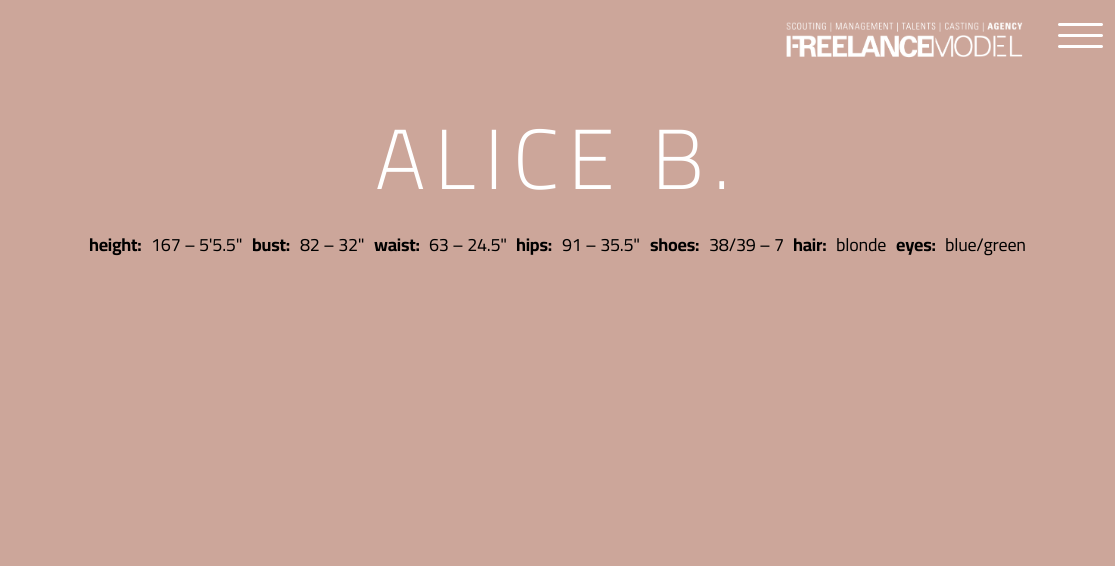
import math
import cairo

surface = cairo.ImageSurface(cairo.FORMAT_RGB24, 1115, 566)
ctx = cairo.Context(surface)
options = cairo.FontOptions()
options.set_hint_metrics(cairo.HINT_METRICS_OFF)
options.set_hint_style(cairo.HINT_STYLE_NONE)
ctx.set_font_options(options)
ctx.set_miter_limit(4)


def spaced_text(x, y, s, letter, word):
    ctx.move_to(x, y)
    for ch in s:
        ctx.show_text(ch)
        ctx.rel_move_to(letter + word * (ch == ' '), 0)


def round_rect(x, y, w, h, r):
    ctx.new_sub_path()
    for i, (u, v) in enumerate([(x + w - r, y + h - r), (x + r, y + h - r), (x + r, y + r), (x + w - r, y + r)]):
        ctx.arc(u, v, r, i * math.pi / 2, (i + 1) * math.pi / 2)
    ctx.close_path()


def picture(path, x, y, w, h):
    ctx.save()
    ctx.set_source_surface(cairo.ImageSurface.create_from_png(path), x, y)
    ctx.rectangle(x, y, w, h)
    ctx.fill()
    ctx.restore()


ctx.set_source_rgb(0.8, 0.651, 0.604)
ctx.paint()
picture("img1.png", 786, 22, 237, 36)
ctx.set_source_rgb(1, 1, 1)
round_rect(1058, 23, 45, 3, 1.5)
ctx.fill()
round_rect(1058, 34, 45, 3, 1.5)
ctx.fill()
round_rect(1058, 45, 45, 3, 1.5)
ctx.fill()
ctx.select_font_face("Cairo Light")
ctx.set_font_size(85)
spaced_text(375, 189, "ALICE B.", 9, 0)
ctx.select_font_face("Cairo", cairo.FONT_SLANT_NORMAL, cairo.FONT_WEIGHT_BOLD)
ctx.set_font_size(18)
ctx.set_source_rgb(0, 0, 0)
spaced_text(89, 251, "height:", -0.25, 0)
ctx.select_font_face("Cairo")
spaced_text(151, 251, "167 – 5'5.5\"", -0.25, 0)
ctx.select_font_face("Cairo", cairo.FONT_SLANT_NORMAL, cairo.FONT_WEIGHT_BOLD)
spaced_text(252, 251, "bust:", -0.25, 0)
ctx.select_font_face("Cairo")
spaced_text(300, 251, "82 – 32\"", -0.25, 0)
ctx.select_font_face("Cairo", cairo.FONT_SLANT_NORMAL, cairo.FONT_WEIGHT_BOLD)
spaced_text(374, 251, "waist:", -0.25, 0)
ctx.select_font_face("Cairo")
spaced_text(429, 251, "63 – 24.5\"", -0.25, 0)
ctx.select_font_face("Cairo", cairo.FONT_SLANT_NORMAL, cairo.FONT_WEIGHT_BOLD)
spaced_text(516, 251, "hips:", -0.25, 0)
ctx.select_font_face("Cairo")
spaced_text(562, 251, "91 – 35.5\"", -0.25, 0)
ctx.select_font_face("Cairo", cairo.FONT_SLANT_NORMAL, cairo.FONT_WEIGHT_BOLD)
spaced_text(650, 251, "shoes:", -0.25, 0)
ctx.select_font_face("Cairo")
spaced_text(709, 251, "38/39 – 7", -0.25, 0)
ctx.select_font_face("Cairo", cairo.FONT_SLANT_NORMAL, cairo.FONT_WEIGHT_BOLD)
spaced_text(793, 251, "hair:", -0.25, 0)
ctx.select_font_face("Cairo")
spaced_text(836, 251, "blonde", -0.25, 0)
ctx.select_font_face("Cairo", cairo.FONT_SLANT_NORMAL, cairo.FONT_WEIGHT_BOLD)
spaced_text(896, 251, "eyes:", -0.25, 0)
ctx.select_font_face("Cairo")
spaced_text(945, 251, "blue/green", -0.25, 0)
surface.write_to_png("page.png")
